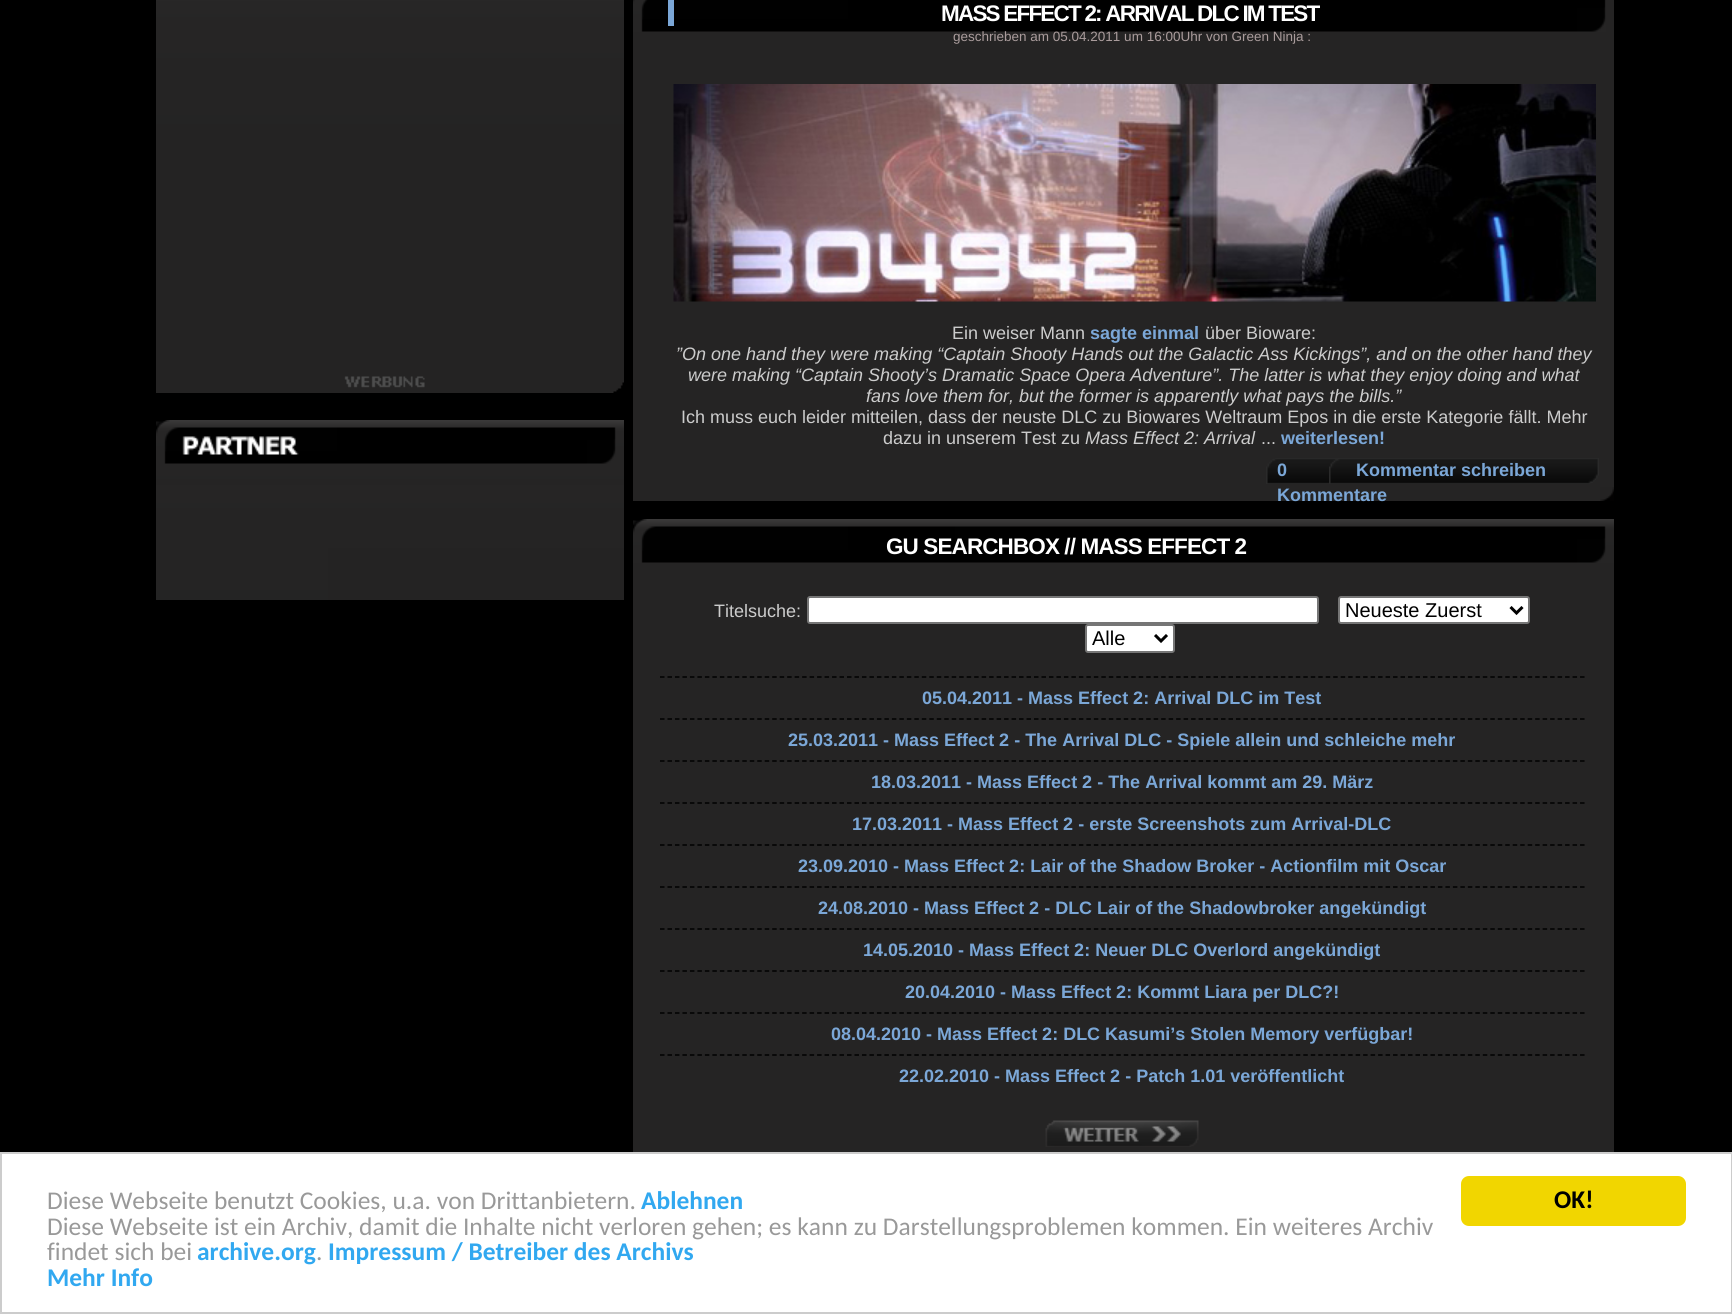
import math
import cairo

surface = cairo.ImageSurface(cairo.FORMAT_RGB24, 1732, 1314)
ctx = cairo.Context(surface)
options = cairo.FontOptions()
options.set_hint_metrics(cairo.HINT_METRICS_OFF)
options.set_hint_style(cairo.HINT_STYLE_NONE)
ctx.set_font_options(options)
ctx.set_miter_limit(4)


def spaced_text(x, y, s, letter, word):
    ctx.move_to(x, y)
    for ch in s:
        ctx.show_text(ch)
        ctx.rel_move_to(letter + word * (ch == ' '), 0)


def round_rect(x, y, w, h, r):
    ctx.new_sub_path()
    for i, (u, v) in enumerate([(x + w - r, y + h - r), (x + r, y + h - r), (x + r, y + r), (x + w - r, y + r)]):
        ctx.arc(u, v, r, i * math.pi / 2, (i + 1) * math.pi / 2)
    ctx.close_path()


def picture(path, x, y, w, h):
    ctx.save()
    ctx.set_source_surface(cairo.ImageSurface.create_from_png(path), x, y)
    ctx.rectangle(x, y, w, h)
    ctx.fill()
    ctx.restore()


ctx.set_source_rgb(0, 0, 0)
ctx.paint()
picture("img1.png", 156, 0, 468, 393)
picture("img2.png", 156, 420, 468, 180)
ctx.set_source_rgb(0.145, 0.141, 0.141)
ctx.rectangle(633, 0, 981, 501)
ctx.fill()
picture("img3.png", 633, 0, 973, 32)
ctx.set_source_rgb(0.482, 0.655, 0.843)
ctx.rectangle(668, 0, 6, 26)
ctx.fill()
ctx.select_font_face("Liberation Sans", cairo.FONT_SLANT_NORMAL, cairo.FONT_WEIGHT_BOLD)
ctx.set_font_size(22.5)
ctx.set_source_rgb(1, 1, 1)
spaced_text(941, 21, "MASS EFFECT 2: ARRIVAL DLC IM TEST", -1.8, 0)
ctx.select_font_face("Liberation Sans")
ctx.set_font_size(13.5)
ctx.set_source_rgb(0.667, 0.612, 0.612)
ctx.move_to(953, 41)
ctx.show_text("geschrieben am 05.04.2011 um 16:00Uhr von Green Ninja :")
picture("img4.png", 673, 84, 923, 218)
ctx.set_font_size(18)
ctx.set_source_rgb(0.8, 0.8, 0.8)
ctx.move_to(952, 339)
ctx.show_text("Ein weiser Mann")
ctx.select_font_face("Liberation Sans", cairo.FONT_SLANT_NORMAL, cairo.FONT_WEIGHT_BOLD)
ctx.set_source_rgb(0.482, 0.655, 0.843)
ctx.move_to(1090, 339)
ctx.show_text("sagte einmal")
ctx.select_font_face("Liberation Sans")
ctx.set_source_rgb(0.8, 0.8, 0.8)
ctx.move_to(1205, 339)
ctx.show_text("über Bioware:")
ctx.select_font_face("Liberation Sans", cairo.FONT_SLANT_ITALIC)
ctx.move_to(676, 360)
ctx.show_text("”On one hand they were making “Captain Shooty Hands out the Galactic Ass Kickings”, and on the other hand they")
ctx.move_to(688, 381)
ctx.show_text("were making “Captain Shooty’s Dramatic Space Opera Adventure”. The latter is what they enjoy doing and what")
ctx.move_to(866, 402)
ctx.show_text("fans love them for, but the former is apparently what pays the bills.”")
ctx.select_font_face("Liberation Sans")
ctx.move_to(681, 423)
ctx.show_text("Ich muss euch leider mitteilen, dass der neuste DLC zu Biowares Weltraum Epos in die erste Kategorie fällt. Mehr")
ctx.move_to(883, 444)
ctx.show_text("dazu in unserem Test zu")
ctx.select_font_face("Liberation Sans", cairo.FONT_SLANT_ITALIC)
ctx.move_to(1085, 444)
ctx.show_text("Mass Effect 2: Arrival")
ctx.select_font_face("Liberation Sans")
ctx.move_to(1261, 444)
ctx.show_text("...")
ctx.select_font_face("Liberation Sans", cairo.FONT_SLANT_NORMAL, cairo.FONT_WEIGHT_BOLD)
ctx.set_source_rgb(0.482, 0.655, 0.843)
ctx.move_to(1281, 444)
ctx.show_text("weiterlesen!")
picture("img5.png", 1266, 458, 73, 26)
ctx.move_to(1277, 476)
ctx.show_text("0")
ctx.move_to(1277, 501)
ctx.show_text("Kommentare")
picture("img6.png", 1329, 458, 270, 26)
ctx.move_to(1356, 476)
ctx.show_text("Kommentar schreiben")
picture("img7.png", 1600, 487, 14, 14)
ctx.set_source_rgb(0.145, 0.141, 0.141)
ctx.rectangle(633, 563, 981, 589)
ctx.fill()
picture("img8.png", 633, 519, 981, 44)
ctx.set_font_size(22.5)
ctx.set_source_rgb(1, 1, 1)
spaced_text(886, 554, "GU SEARCHBOX // MASS EFFECT 2", -0.9, 0)
ctx.select_font_face("Liberation Sans")
ctx.set_font_size(18)
ctx.set_source_rgb(0.8, 0.8, 0.8)
ctx.move_to(714, 617)
ctx.show_text("Titelsuche:")
ctx.set_source_rgb(1, 1, 1)
round_rect(808, 597, 510, 26, 2)
ctx.fill_preserve()
ctx.set_source_rgb(0.463, 0.463, 0.463)
ctx.stroke()
ctx.set_source_rgb(1, 1, 1)
round_rect(1339, 597, 190, 26, 2)
ctx.fill_preserve()
ctx.set_source_rgb(0.463, 0.463, 0.463)
ctx.stroke()
ctx.new_path()
ctx.move_to(1510.5, 607)
ctx.line_to(1516.5, 613)
ctx.line_to(1522.5, 607)
ctx.set_source_rgb(0, 0, 0)
ctx.set_line_width(3)
ctx.stroke()
ctx.set_font_size(20)
ctx.move_to(1345, 617)
ctx.show_text("Neueste Zuerst")
ctx.set_source_rgb(1, 1, 1)
round_rect(1086, 625, 88, 27, 2)
ctx.fill_preserve()
ctx.set_source_rgb(0.463, 0.463, 0.463)
ctx.set_line_width(2)
ctx.stroke()
ctx.new_path()
ctx.move_to(1155, 635)
ctx.line_to(1161, 641)
ctx.line_to(1167, 635)
ctx.set_source_rgb(0, 0, 0)
ctx.set_line_width(3)
ctx.stroke()
ctx.move_to(1092, 645)
ctx.show_text("Alle")
ctx.new_path()
ctx.move_to(660, 677)
ctx.line_to(1585.5, 677)
ctx.set_line_width(1.5)
ctx.set_dash([4.5, 2.98])
ctx.stroke()
ctx.select_font_face("Liberation Sans", cairo.FONT_SLANT_NORMAL, cairo.FONT_WEIGHT_BOLD)
ctx.set_font_size(18)
ctx.set_source_rgb(0.482, 0.655, 0.843)
ctx.move_to(922, 704)
ctx.show_text("05.04.2011 - Mass Effect 2: Arrival DLC im Test")
ctx.new_path()
ctx.move_to(660, 719)
ctx.line_to(1585.5, 719)
ctx.set_source_rgb(0, 0, 0)
ctx.stroke()
ctx.set_source_rgb(0.482, 0.655, 0.843)
ctx.move_to(788, 746)
ctx.show_text("25.03.2011 - Mass Effect 2 - The Arrival DLC - Spiele allein und schleiche mehr")
ctx.new_path()
ctx.move_to(660, 761)
ctx.line_to(1585.5, 761)
ctx.set_source_rgb(0, 0, 0)
ctx.stroke()
ctx.set_source_rgb(0.482, 0.655, 0.843)
ctx.move_to(871, 788)
ctx.show_text("18.03.2011 - Mass Effect 2 - The Arrival kommt am 29. März")
ctx.new_path()
ctx.move_to(660, 803)
ctx.line_to(1585.5, 803)
ctx.set_source_rgb(0, 0, 0)
ctx.stroke()
ctx.set_source_rgb(0.482, 0.655, 0.843)
ctx.move_to(852, 830)
ctx.show_text("17.03.2011 - Mass Effect 2 - erste Screenshots zum Arrival-DLC")
ctx.new_path()
ctx.move_to(660, 845)
ctx.line_to(1585.5, 845)
ctx.set_source_rgb(0, 0, 0)
ctx.stroke()
ctx.set_source_rgb(0.482, 0.655, 0.843)
ctx.move_to(798, 872)
ctx.show_text("23.09.2010 - Mass Effect 2: Lair of the Shadow Broker - Actionfilm mit Oscar")
ctx.new_path()
ctx.move_to(660, 887)
ctx.line_to(1585.5, 887)
ctx.set_source_rgb(0, 0, 0)
ctx.stroke()
ctx.set_source_rgb(0.482, 0.655, 0.843)
ctx.move_to(818, 914)
ctx.show_text("24.08.2010 - Mass Effect 2 - DLC Lair of the Shadowbroker angekündigt")
ctx.new_path()
ctx.move_to(660, 929)
ctx.line_to(1585.5, 929)
ctx.set_source_rgb(0, 0, 0)
ctx.stroke()
ctx.set_source_rgb(0.482, 0.655, 0.843)
ctx.move_to(863, 956)
ctx.show_text("14.05.2010 - Mass Effect 2: Neuer DLC Overlord angekündigt")
ctx.new_path()
ctx.move_to(660, 971)
ctx.line_to(1585.5, 971)
ctx.set_source_rgb(0, 0, 0)
ctx.stroke()
ctx.set_source_rgb(0.482, 0.655, 0.843)
ctx.move_to(905, 998)
ctx.show_text("20.04.2010 - Mass Effect 2: Kommt Liara per DLC?!")
ctx.new_path()
ctx.move_to(660, 1013)
ctx.line_to(1585.5, 1013)
ctx.set_source_rgb(0, 0, 0)
ctx.stroke()
ctx.set_source_rgb(0.482, 0.655, 0.843)
ctx.move_to(831, 1040)
ctx.show_text("08.04.2010 - Mass Effect 2: DLC Kasumi’s Stolen Memory verfügbar!")
ctx.new_path()
ctx.move_to(660, 1055)
ctx.line_to(1585.5, 1055)
ctx.set_source_rgb(0, 0, 0)
ctx.stroke()
ctx.set_source_rgb(0.482, 0.655, 0.843)
ctx.move_to(899, 1082)
ctx.show_text("22.02.2010 - Mass Effect 2 - Patch 1.01 veröffentlicht")
picture("img9.png", 1045, 1120, 154, 27)
ctx.set_source_rgb(1, 1, 1)
ctx.rectangle(1, 1153, 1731, 160)
ctx.fill_preserve()
ctx.set_source_rgb(0.8, 0.8, 0.8)
ctx.set_line_width(2)
ctx.set_dash([])
ctx.stroke()
ctx.select_font_face("Carlito")
ctx.set_font_size(25.5)
ctx.set_source_rgb(0.6, 0.6, 0.6)
ctx.move_to(47, 1209)
ctx.show_text("Diese Webseite benutzt Cookies, u.a. von Drittanbietern.")
ctx.select_font_face("Carlito", cairo.FONT_SLANT_NORMAL, cairo.FONT_WEIGHT_BOLD)
ctx.set_source_rgb(0.192, 0.659, 0.941)
ctx.move_to(641, 1209)
ctx.show_text("Ablehnen")
ctx.select_font_face("Carlito")
ctx.set_source_rgb(0.6, 0.6, 0.6)
ctx.move_to(47, 1235)
ctx.show_text("Diese Webseite ist ein Archiv, damit die Inhalte nicht verloren gehen; es kann zu Darstellungsproblemen kommen. Ein weiteres Archiv")
ctx.move_to(47, 1260)
ctx.show_text("findet sich bei")
ctx.select_font_face("Carlito", cairo.FONT_SLANT_NORMAL, cairo.FONT_WEIGHT_BOLD)
ctx.set_source_rgb(0.192, 0.659, 0.941)
ctx.move_to(197, 1260)
ctx.show_text("archive.org")
ctx.select_font_face("Carlito")
ctx.set_source_rgb(0.6, 0.6, 0.6)
ctx.move_to(316, 1260)
ctx.show_text(".")
ctx.select_font_face("Carlito", cairo.FONT_SLANT_NORMAL, cairo.FONT_WEIGHT_BOLD)
ctx.set_source_rgb(0.192, 0.659, 0.941)
ctx.move_to(328, 1260)
ctx.show_text("Impressum / Betreiber des Archivs")
ctx.move_to(47, 1286)
ctx.show_text("Mehr Info")
ctx.set_source_rgb(0.945, 0.839, 0)
round_rect(1461, 1176, 225, 50, 8)
ctx.fill()
ctx.set_source_rgb(0, 0, 0)
ctx.move_to(1554, 1208)
ctx.show_text("OK!")
surface.write_to_png("page.png")
